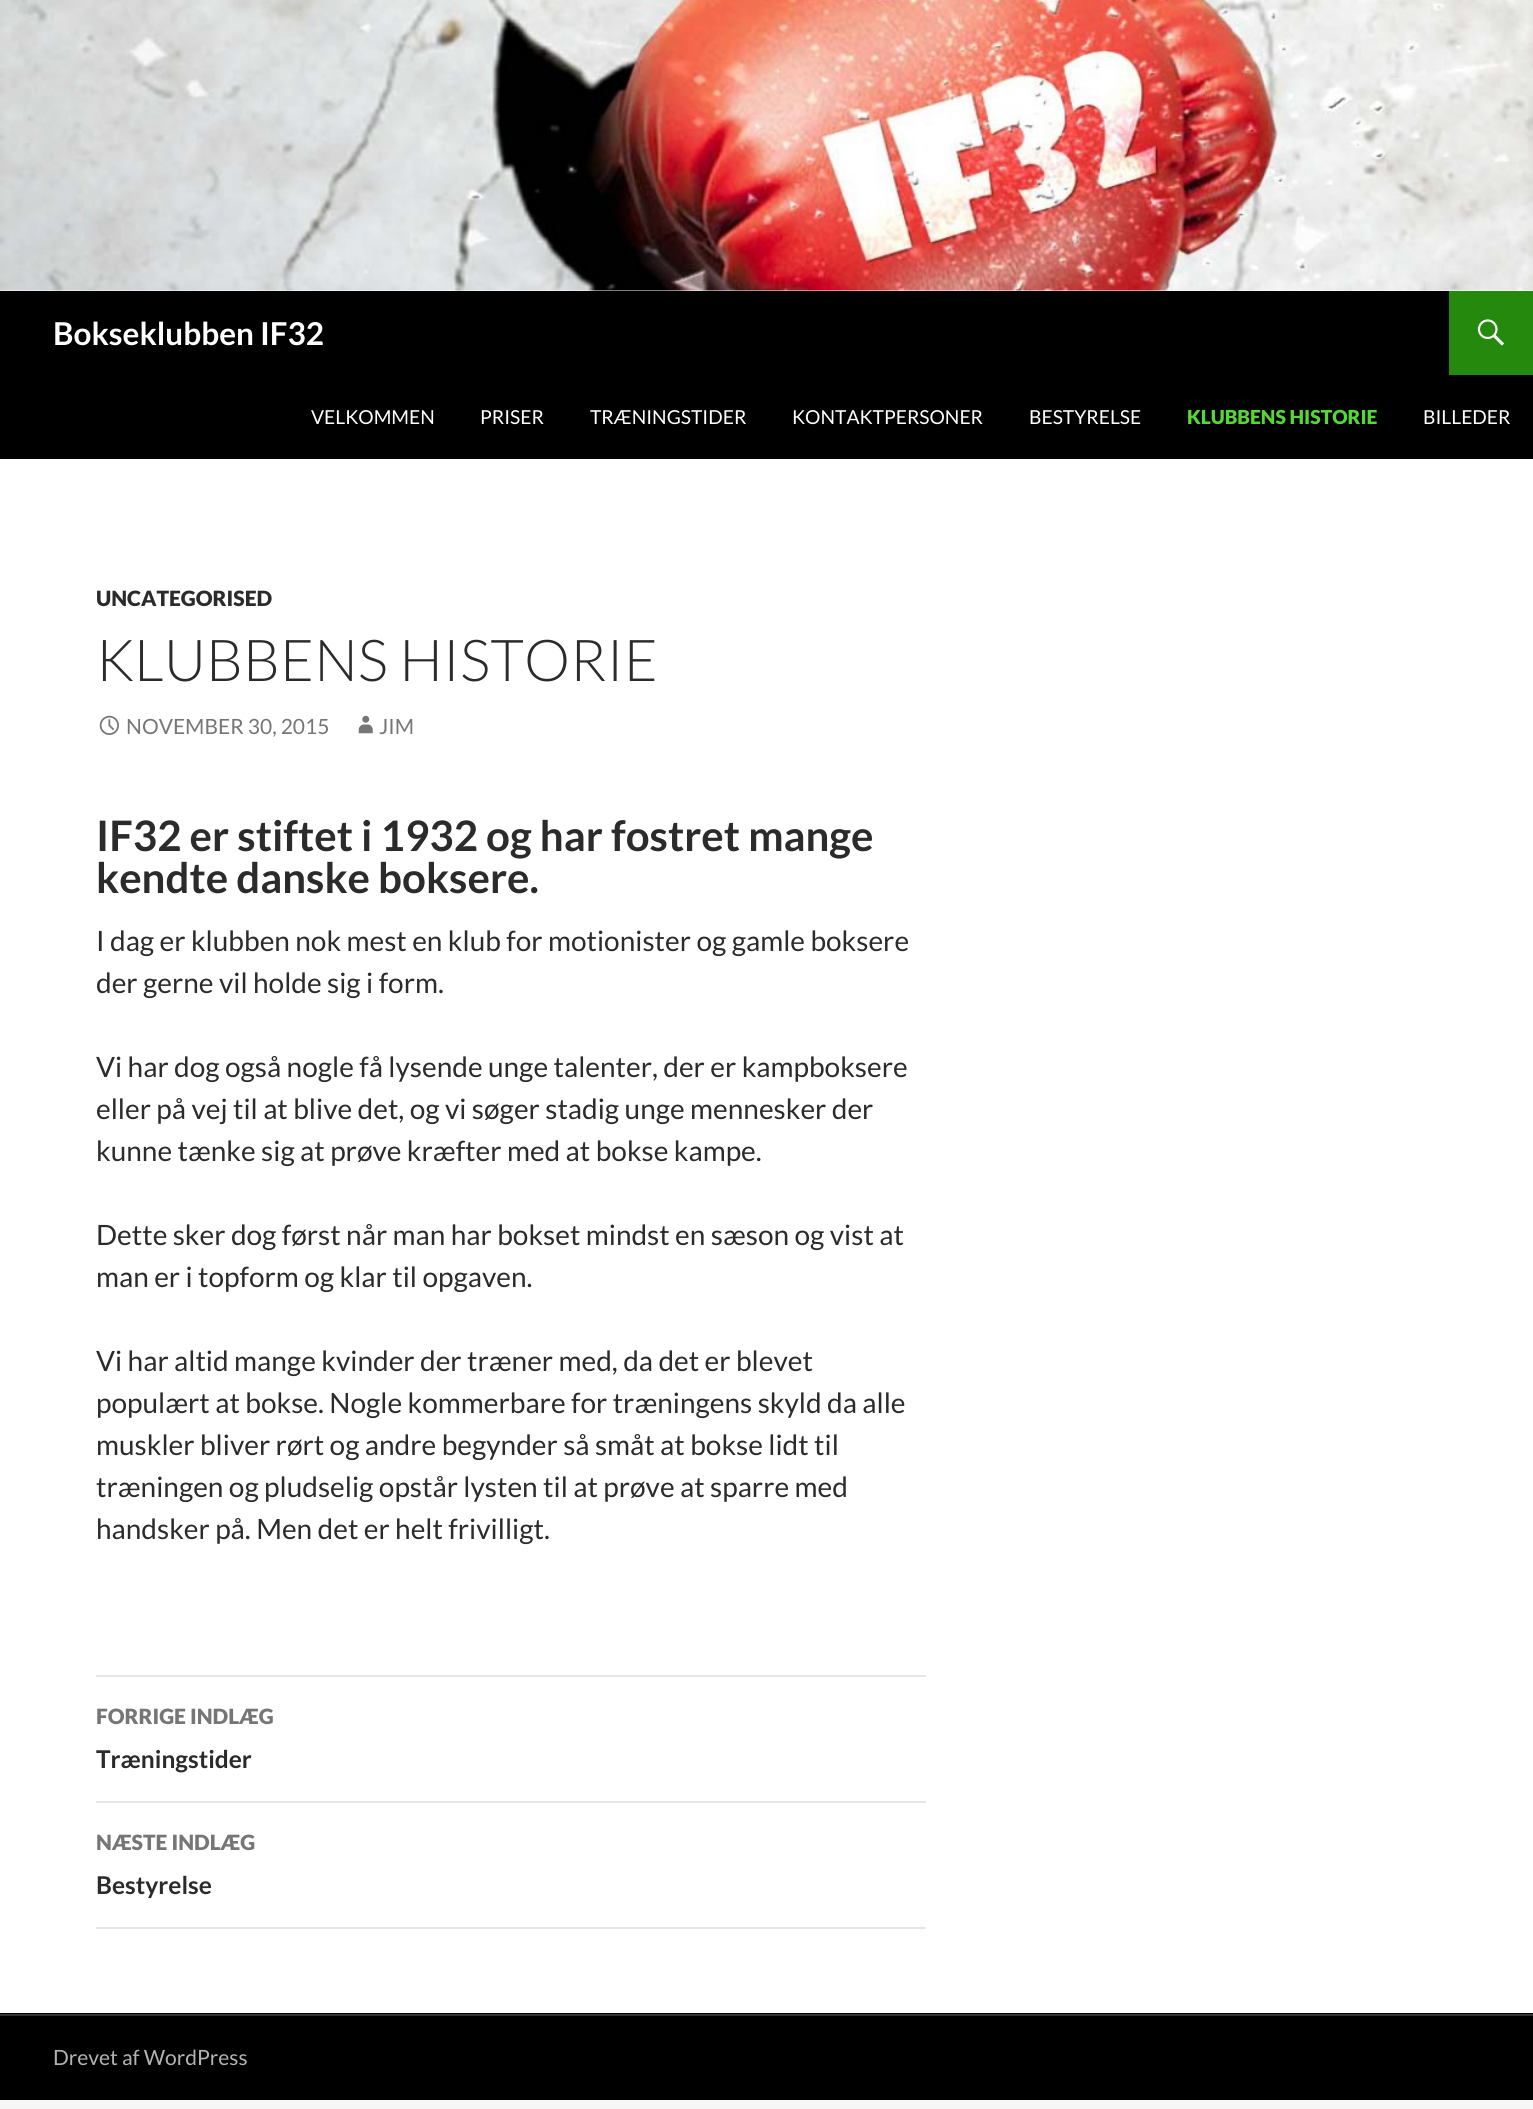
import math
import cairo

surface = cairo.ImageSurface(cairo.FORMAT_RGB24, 1533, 2109)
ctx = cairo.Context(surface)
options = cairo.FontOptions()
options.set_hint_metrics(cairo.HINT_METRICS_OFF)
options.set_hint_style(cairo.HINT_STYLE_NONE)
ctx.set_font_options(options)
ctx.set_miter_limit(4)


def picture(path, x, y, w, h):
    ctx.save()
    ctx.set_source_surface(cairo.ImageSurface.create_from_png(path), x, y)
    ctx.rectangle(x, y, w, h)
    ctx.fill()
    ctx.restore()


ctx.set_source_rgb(0.961, 0.961, 0.961)
ctx.paint()
ctx.set_source_rgb(1, 1, 1)
ctx.rectangle(0, 290, 1533, 1723)
ctx.fill()
picture("img1.png", 0, 0, 1533, 291)
ctx.set_source_rgb(0, 0, 0)
ctx.rectangle(0, 291, 1533, 168)
ctx.fill()
ctx.select_font_face("Lato", cairo.FONT_SLANT_NORMAL, cairo.FONT_WEIGHT_BOLD)
ctx.set_font_size(31.5)
ctx.set_source_rgb(1, 1, 1)
ctx.move_to(53, 345)
ctx.show_text("Bokseklubben IF32")
ctx.set_source_rgb(0.141, 0.537, 0.051)
ctx.rectangle(1449, 291, 84, 84)
ctx.fill()
picture("img2.png", 1477, 319, 27, 27)
ctx.select_font_face("Lato")
ctx.set_font_size(19.25)
ctx.set_source_rgb(1, 1, 1)
ctx.move_to(311, 424)
ctx.show_text("VELKOMMEN")
ctx.move_to(480, 424)
ctx.show_text("PRISER")
ctx.move_to(590, 424)
ctx.show_text("TRÆNINGSTIDER")
ctx.move_to(792, 424)
ctx.show_text("KONTAKTPERSONER")
ctx.move_to(1029, 424)
ctx.show_text("BESTYRELSE")
ctx.select_font_face("Lato Black")
ctx.set_source_rgb(0.333, 0.843, 0.216)
ctx.move_to(1187, 424)
ctx.show_text("KLUBBENS HISTORIE")
ctx.select_font_face("Lato")
ctx.set_source_rgb(1, 1, 1)
ctx.move_to(1423, 424)
ctx.show_text("BILLEDER")
ctx.select_font_face("Lato Black")
ctx.set_font_size(21)
ctx.set_source_rgb(0.169, 0.169, 0.169)
ctx.move_to(96, 606)
ctx.show_text("UNCATEGORISED")
ctx.select_font_face("Lato Light")
ctx.set_font_size(57.75)
ctx.move_to(96, 681)
ctx.show_text("KLUBBENS HISTORIE")
picture("img3.png", 99, 715, 20, 20)
ctx.select_font_face("Lato")
ctx.set_font_size(21)
ctx.set_source_rgb(0.463, 0.463, 0.463)
ctx.move_to(126, 734)
ctx.show_text("NOVEMBER 30, 2015")
picture("img4.png", 358, 715, 15, 19)
ctx.move_to(379, 734)
ctx.show_text("JIM")
ctx.select_font_face("Lato", cairo.FONT_SLANT_NORMAL, cairo.FONT_WEIGHT_BOLD)
ctx.set_font_size(42)
ctx.set_source_rgb(0.169, 0.169, 0.169)
ctx.move_to(96, 851)
ctx.show_text("IF32 er stiftet i 1932 og har fostret mange")
ctx.move_to(96, 893)
ctx.show_text("kendte danske boksere.")
ctx.select_font_face("Lato")
ctx.set_font_size(28)
ctx.move_to(96, 951)
ctx.show_text("I dag er klubben nok mest en klub for motionister og gamle boksere")
ctx.move_to(96, 993)
ctx.show_text("der gerne vil holde sig i form.")
ctx.move_to(96, 1077)
ctx.show_text("Vi har dog også nogle få lysende unge talenter, der er kampboksere")
ctx.move_to(96, 1119)
ctx.show_text("eller på vej til at blive det, og vi søger stadig unge mennesker der")
ctx.move_to(96, 1161)
ctx.show_text("kunne tænke sig at prøve kræfter med at bokse kampe.")
ctx.move_to(96, 1245)
ctx.show_text("Dette sker dog først når man har bokset mindst en sæson og vist at")
ctx.move_to(96, 1287)
ctx.show_text("man er i topform og klar til opgaven.")
ctx.move_to(96, 1371)
ctx.show_text("Vi har altid mange kvinder der træner med, da det er blevet")
ctx.move_to(96, 1413)
ctx.show_text("populært at bokse. Nogle kommerbare for træningens skyld da alle")
ctx.move_to(96, 1455)
ctx.show_text("muskler bliver rørt og andre begynder så småt at bokse lidt til")
ctx.move_to(96, 1497)
ctx.show_text("træningen og pludselig opstår lysten til at prøve at sparre med")
ctx.move_to(96, 1539)
ctx.show_text("handsker på. Men det er helt frivilligt.")
ctx.set_source_rgb(0.902, 0.902, 0.902)
ctx.rectangle(96, 1675, 830, 2)
ctx.fill()
ctx.rectangle(96, 1801, 830, 2)
ctx.fill()
ctx.select_font_face("Lato Black")
ctx.set_font_size(21)
ctx.set_source_rgb(0.463, 0.463, 0.463)
ctx.move_to(96, 1724)
ctx.show_text("FORRIGE INDLÆG")
ctx.select_font_face("Lato", cairo.FONT_SLANT_NORMAL, cairo.FONT_WEIGHT_BOLD)
ctx.set_font_size(24.5)
ctx.set_source_rgb(0.169, 0.169, 0.169)
ctx.move_to(96, 1768)
ctx.show_text("Træningstider")
ctx.set_source_rgb(0.902, 0.902, 0.902)
ctx.rectangle(96, 1927, 830, 2)
ctx.fill()
ctx.select_font_face("Lato Black")
ctx.set_font_size(21)
ctx.set_source_rgb(0.463, 0.463, 0.463)
ctx.move_to(96, 1850)
ctx.show_text("NÆSTE INDLÆG")
ctx.select_font_face("Lato", cairo.FONT_SLANT_NORMAL, cairo.FONT_WEIGHT_BOLD)
ctx.set_font_size(24.5)
ctx.set_source_rgb(0.169, 0.169, 0.169)
ctx.move_to(96, 1894)
ctx.show_text("Bestyrelse")
ctx.set_source_rgb(0, 0, 0)
ctx.rectangle(0, 2013, 1533, 1)
ctx.fill()
ctx.set_source_rgb(0.2, 0.2, 0.2)
ctx.rectangle(0, 2014, 1533, 2)
ctx.fill()
ctx.set_source_rgb(0, 0, 0)
ctx.rectangle(0, 2016, 1533, 84)
ctx.fill()
ctx.select_font_face("Lato")
ctx.set_font_size(21)
ctx.set_source_rgb(0.702, 0.702, 0.702)
ctx.move_to(53, 2065)
ctx.show_text("Drevet af WordPress")
surface.write_to_png("page.png")
